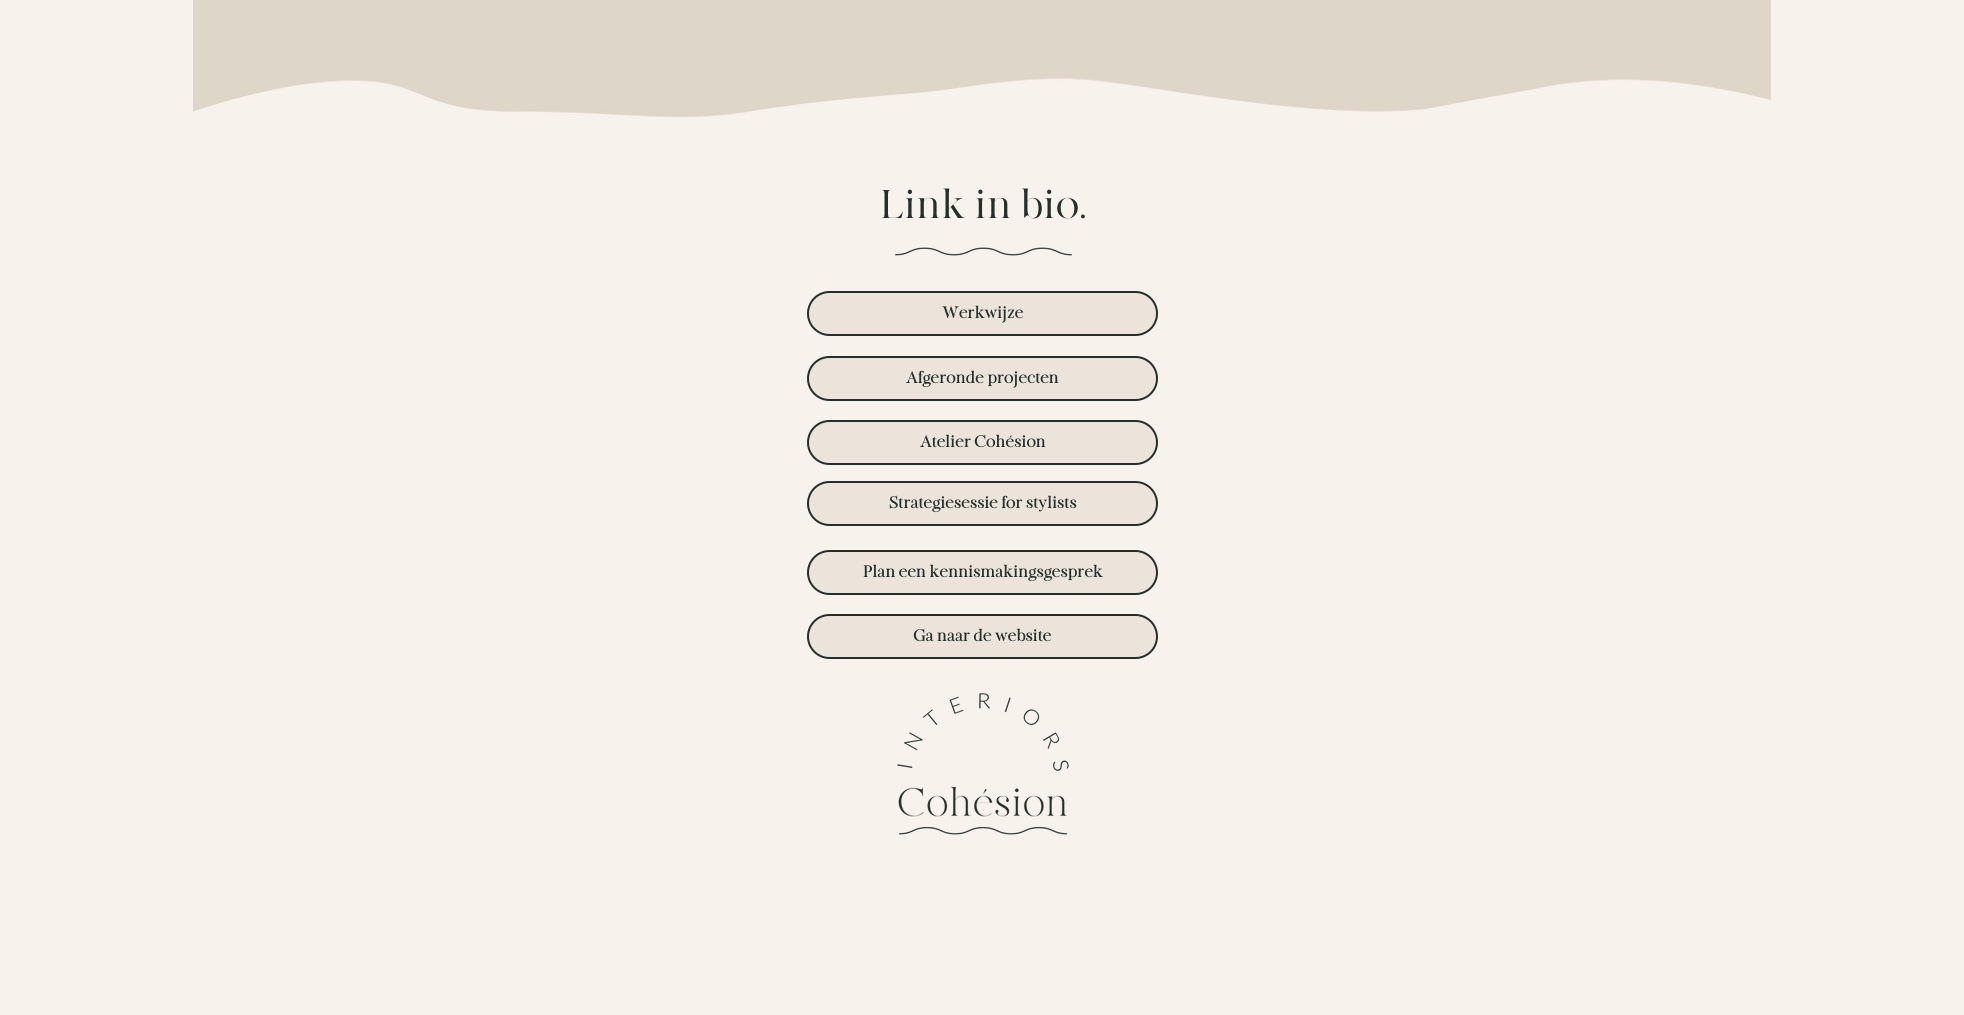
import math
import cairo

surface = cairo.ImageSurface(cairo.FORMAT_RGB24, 1964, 1015)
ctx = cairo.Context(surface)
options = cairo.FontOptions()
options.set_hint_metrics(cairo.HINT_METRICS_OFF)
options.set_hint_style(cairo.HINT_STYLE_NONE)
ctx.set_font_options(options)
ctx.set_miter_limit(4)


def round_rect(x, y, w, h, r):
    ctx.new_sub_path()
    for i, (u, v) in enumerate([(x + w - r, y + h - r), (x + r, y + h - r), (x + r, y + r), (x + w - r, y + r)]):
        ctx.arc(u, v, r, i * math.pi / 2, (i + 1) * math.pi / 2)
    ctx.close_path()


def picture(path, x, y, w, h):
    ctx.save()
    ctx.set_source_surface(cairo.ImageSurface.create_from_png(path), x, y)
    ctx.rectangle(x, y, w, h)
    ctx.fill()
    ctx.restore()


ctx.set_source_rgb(0.969, 0.949, 0.925)
ctx.paint()
picture("img1.png", 193, 0, 1578, 118)
ctx.select_font_face("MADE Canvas")
ctx.set_font_size(40)
ctx.set_source_rgb(0.137, 0.188, 0.165)
ctx.move_to(880, 218)
ctx.show_text("Link in bio.")
picture("img2.png", 895, 247, 177, 9)
ctx.set_source_rgb(0.922, 0.894, 0.859)
round_rect(808, 292, 349, 43, 21.5)
ctx.fill_preserve()
ctx.set_source_rgb(0.137, 0.188, 0.165)
ctx.stroke()
ctx.select_font_face("MADE Canvas", cairo.FONT_SLANT_NORMAL, cairo.FONT_WEIGHT_BOLD)
ctx.set_font_size(16)
ctx.move_to(942, 318)
ctx.show_text("Werkwijze")
ctx.set_source_rgb(0.922, 0.894, 0.859)
round_rect(808, 357, 349, 43, 21.5)
ctx.fill_preserve()
ctx.set_source_rgb(0.137, 0.188, 0.165)
ctx.stroke()
ctx.move_to(906, 383)
ctx.show_text("Afgeronde projecten")
ctx.set_source_rgb(0.922, 0.894, 0.859)
round_rect(808, 421, 349, 43, 21.5)
ctx.fill_preserve()
ctx.set_source_rgb(0.137, 0.188, 0.165)
ctx.stroke()
ctx.move_to(920, 447)
ctx.show_text("Atelier Cohésion")
ctx.set_source_rgb(0.922, 0.894, 0.859)
round_rect(808, 482, 349, 43, 21.5)
ctx.fill_preserve()
ctx.set_source_rgb(0.137, 0.188, 0.165)
ctx.stroke()
ctx.move_to(889, 508)
ctx.show_text("Strategiesessie for stylists")
ctx.set_source_rgb(0.922, 0.894, 0.859)
round_rect(808, 551, 349, 43, 21.5)
ctx.fill_preserve()
ctx.set_source_rgb(0.137, 0.188, 0.165)
ctx.stroke()
ctx.move_to(863, 577)
ctx.show_text("Plan een kennismakingsgesprek")
ctx.set_source_rgb(0.922, 0.894, 0.859)
round_rect(808, 615, 349, 43, 21.5)
ctx.fill_preserve()
ctx.set_source_rgb(0.137, 0.188, 0.165)
ctx.stroke()
ctx.move_to(913, 641)
ctx.show_text("Ga naar de website")
picture("img3.png", 897, 693, 172, 142)
surface.write_to_png("page.png")
